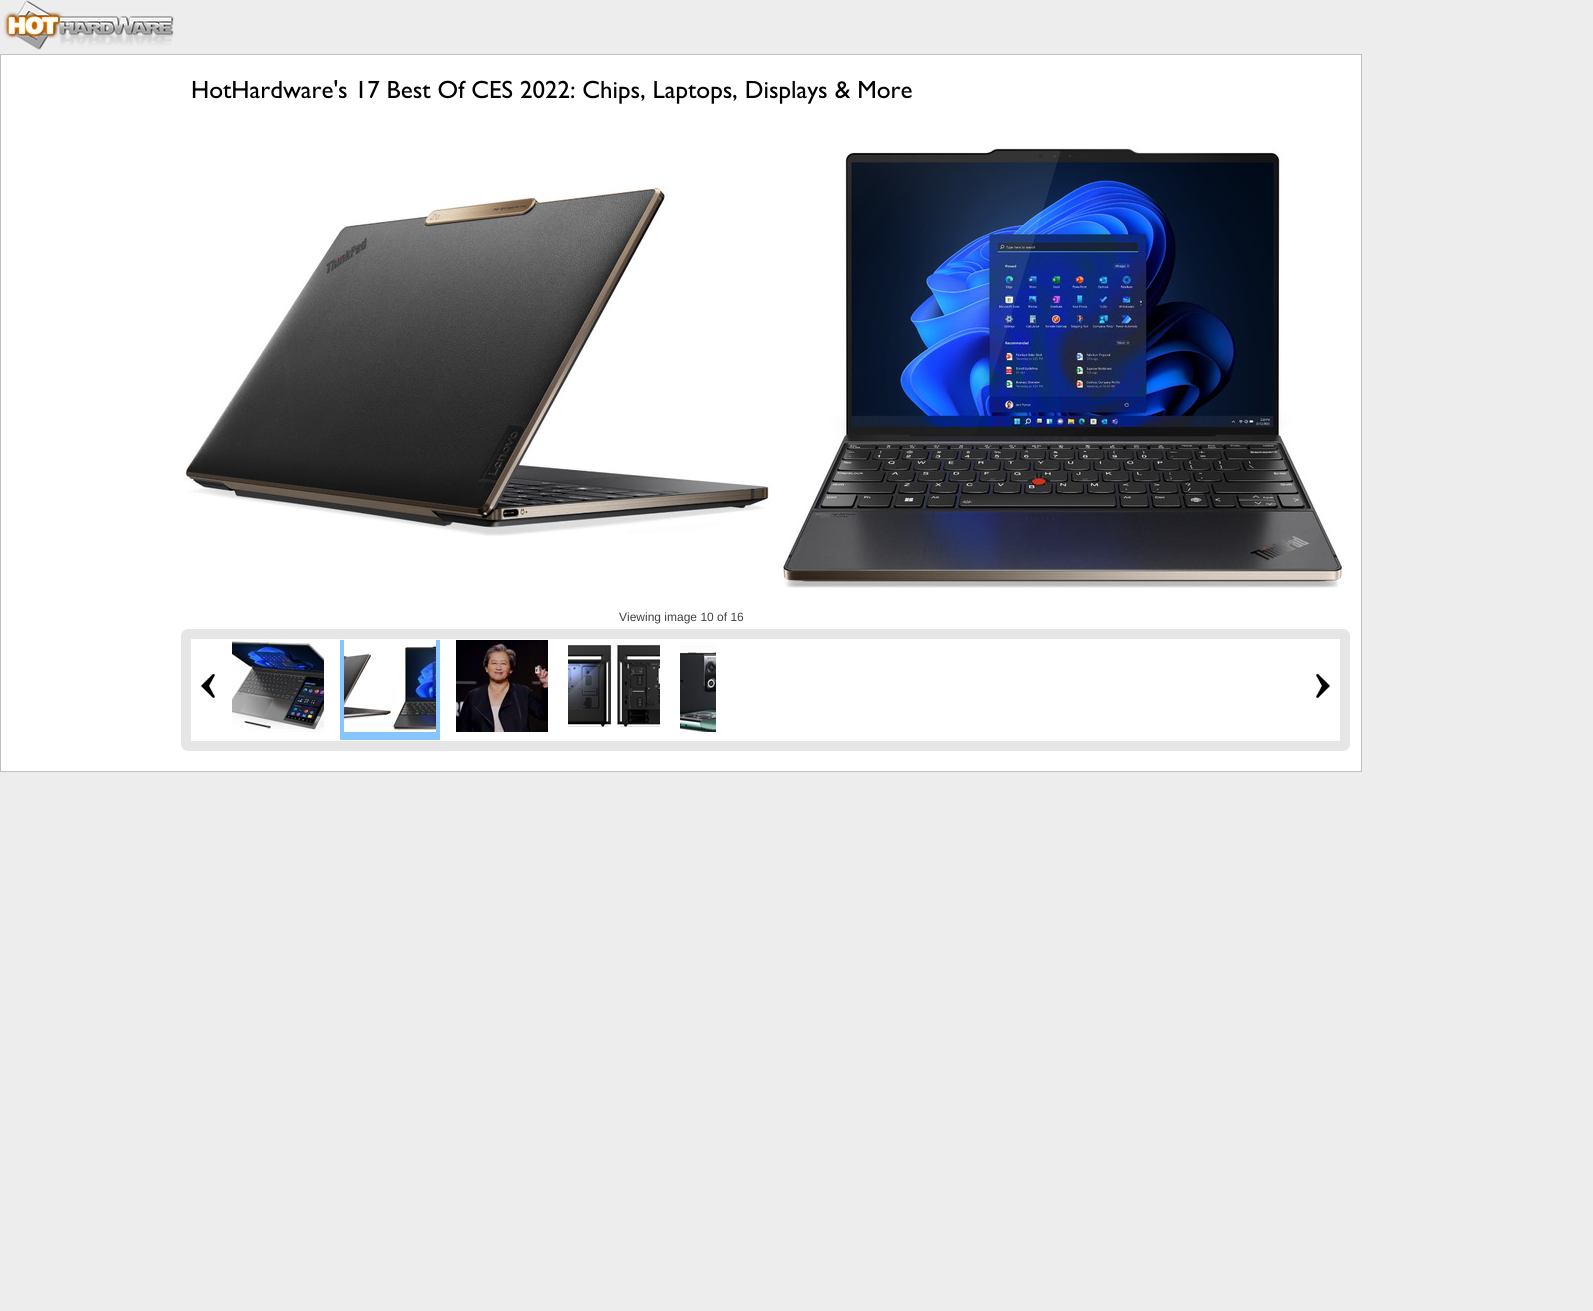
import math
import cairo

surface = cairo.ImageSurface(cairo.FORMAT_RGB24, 1593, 1311)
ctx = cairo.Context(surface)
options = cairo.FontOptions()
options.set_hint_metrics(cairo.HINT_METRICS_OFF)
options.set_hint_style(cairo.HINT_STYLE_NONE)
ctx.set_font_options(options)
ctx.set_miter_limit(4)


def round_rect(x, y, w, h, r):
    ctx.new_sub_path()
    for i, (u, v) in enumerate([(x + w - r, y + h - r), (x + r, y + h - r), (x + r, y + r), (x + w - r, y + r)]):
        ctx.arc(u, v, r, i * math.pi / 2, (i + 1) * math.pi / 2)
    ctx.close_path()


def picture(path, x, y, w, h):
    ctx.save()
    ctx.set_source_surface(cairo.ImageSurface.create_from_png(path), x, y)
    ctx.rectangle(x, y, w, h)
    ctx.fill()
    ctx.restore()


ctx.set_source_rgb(0.929, 0.929, 0.929)
ctx.paint()
picture("img1.png", 3, 0, 171, 50)
ctx.set_source_rgb(1, 1, 1)
ctx.rectangle(0.5, 54.5, 1361, 717)
ctx.fill_preserve()
ctx.set_source_rgb(0.753, 0.753, 0.753)
ctx.set_line_width(1)
ctx.stroke()
ctx.select_font_face("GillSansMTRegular")
ctx.set_font_size(25)
ctx.set_source_rgb(0, 0, 0)
ctx.move_to(191, 98)
ctx.show_text("HotHardware's 17 Best Of CES 2022: Chips, Laptops, Displays & More")
picture("img2.png", 181, 146, 1167, 442)
ctx.select_font_face("Liberation Sans")
ctx.set_font_size(12)
ctx.set_source_rgb(0.247, 0.247, 0.247)
ctx.move_to(619, 621)
ctx.show_text("Viewing image 10 of 16")
ctx.set_source_rgb(0.902, 0.902, 0.902)
round_rect(181, 629, 1169, 122, 7)
ctx.fill()
ctx.set_source_rgb(1, 1, 1)
ctx.rectangle(191, 639, 1149, 102)
ctx.fill()
picture("img3.png", 201, 674, 14, 24)
picture("img4.png", 232, 640, 92, 92)
ctx.set_source_rgb(0.529, 0.773, 1)
ctx.rectangle(340, 640, 100, 100)
ctx.fill()
picture("img5.png", 344, 640, 92, 92)
picture("img6.png", 456, 640, 92, 92)
picture("img7.png", 568, 640, 92, 88)
picture("img8.png", 680, 643, 36, 89)
picture("img9.png", 1316, 674, 14, 24)
surface.write_to_png("page.png")
